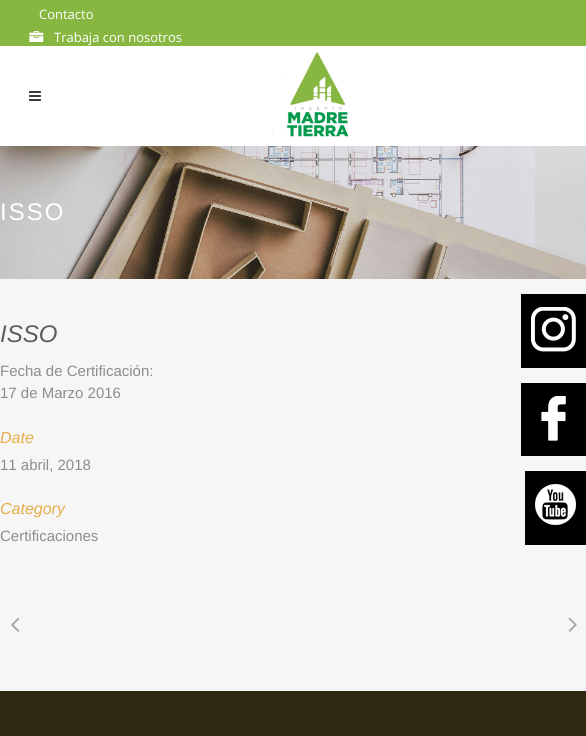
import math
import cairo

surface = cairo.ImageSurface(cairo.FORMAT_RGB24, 586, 736)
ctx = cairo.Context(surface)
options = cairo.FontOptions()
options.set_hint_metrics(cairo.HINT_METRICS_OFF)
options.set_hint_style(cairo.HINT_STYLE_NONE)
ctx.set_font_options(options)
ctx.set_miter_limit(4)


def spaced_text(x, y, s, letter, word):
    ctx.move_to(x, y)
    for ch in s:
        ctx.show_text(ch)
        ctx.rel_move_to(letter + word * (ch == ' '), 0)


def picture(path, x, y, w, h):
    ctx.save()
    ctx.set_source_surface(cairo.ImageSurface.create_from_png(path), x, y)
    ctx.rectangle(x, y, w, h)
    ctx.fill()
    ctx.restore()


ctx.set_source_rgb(0.961, 0.961, 0.961)
ctx.paint()
ctx.set_source_rgb(0.529, 0.718, 0.255)
ctx.rectangle(0, 0, 586, 46)
ctx.fill()
ctx.select_font_face("Open Sans")
ctx.set_font_size(13)
ctx.set_source_rgb(1, 1, 1)
ctx.move_to(39, 19)
ctx.show_text("Contacto")
picture("img1.png", 29, 31, 15, 11)
ctx.move_to(54, 42)
ctx.show_text("Trabaja con nosotros")
ctx.rectangle(0, 46, 586, 100)
ctx.fill()
picture("img2.png", 29, 91, 12, 10)
picture("img3.png", 272, 52, 77, 85)
picture("img4.png", 0, 146, 586, 133)
ctx.select_font_face("Liberation Sans")
ctx.set_font_size(24)
spaced_text(0, 220, "ISSO", 2, 0)
ctx.select_font_face("Liberation Sans", cairo.FONT_SLANT_ITALIC)
ctx.set_source_rgb(0.365, 0.365, 0.365)
ctx.move_to(0, 342)
ctx.show_text("ISSO")
ctx.select_font_face("Liberation Sans")
ctx.set_font_size(15)
ctx.set_source_rgb(0.553, 0.553, 0.553)
ctx.move_to(0, 376)
ctx.show_text("Fecha de Certificación:")
ctx.move_to(0, 398)
ctx.show_text("17 de Marzo 2016")
ctx.select_font_face("Liberation Sans", cairo.FONT_SLANT_ITALIC)
ctx.set_font_size(16)
ctx.set_source_rgb(0.902, 0.682, 0.282)
ctx.move_to(0, 443)
ctx.show_text("Date")
ctx.select_font_face("Liberation Sans")
ctx.set_font_size(15)
ctx.set_source_rgb(0.553, 0.553, 0.553)
ctx.move_to(0, 470)
ctx.show_text("11 abril, 2018")
ctx.select_font_face("Liberation Sans", cairo.FONT_SLANT_ITALIC)
ctx.set_font_size(16)
ctx.set_source_rgb(0.902, 0.682, 0.282)
ctx.move_to(0, 514)
ctx.show_text("Category")
ctx.select_font_face("Liberation Sans")
ctx.set_font_size(15)
ctx.set_source_rgb(0.553, 0.553, 0.553)
ctx.move_to(0, 541)
ctx.show_text("Certificaciones")
picture("img5.png", 11, 617, 9, 15)
picture("img6.png", 568, 617, 9, 15)
ctx.set_source_rgb(0, 0, 0)
ctx.rectangle(521, 294, 65, 74)
ctx.fill()
picture("img7.png", 531, 307, 45, 45)
ctx.rectangle(521, 383, 65, 73)
ctx.fill()
picture("img8.png", 541, 396, 25, 45)
ctx.rectangle(525, 471, 61, 74)
ctx.fill()
picture("img9.png", 535, 484, 41, 41)
ctx.set_source_rgb(0.184, 0.161, 0.071)
ctx.rectangle(0, 691, 586, 45)
ctx.fill()
surface.write_to_png("page.png")
